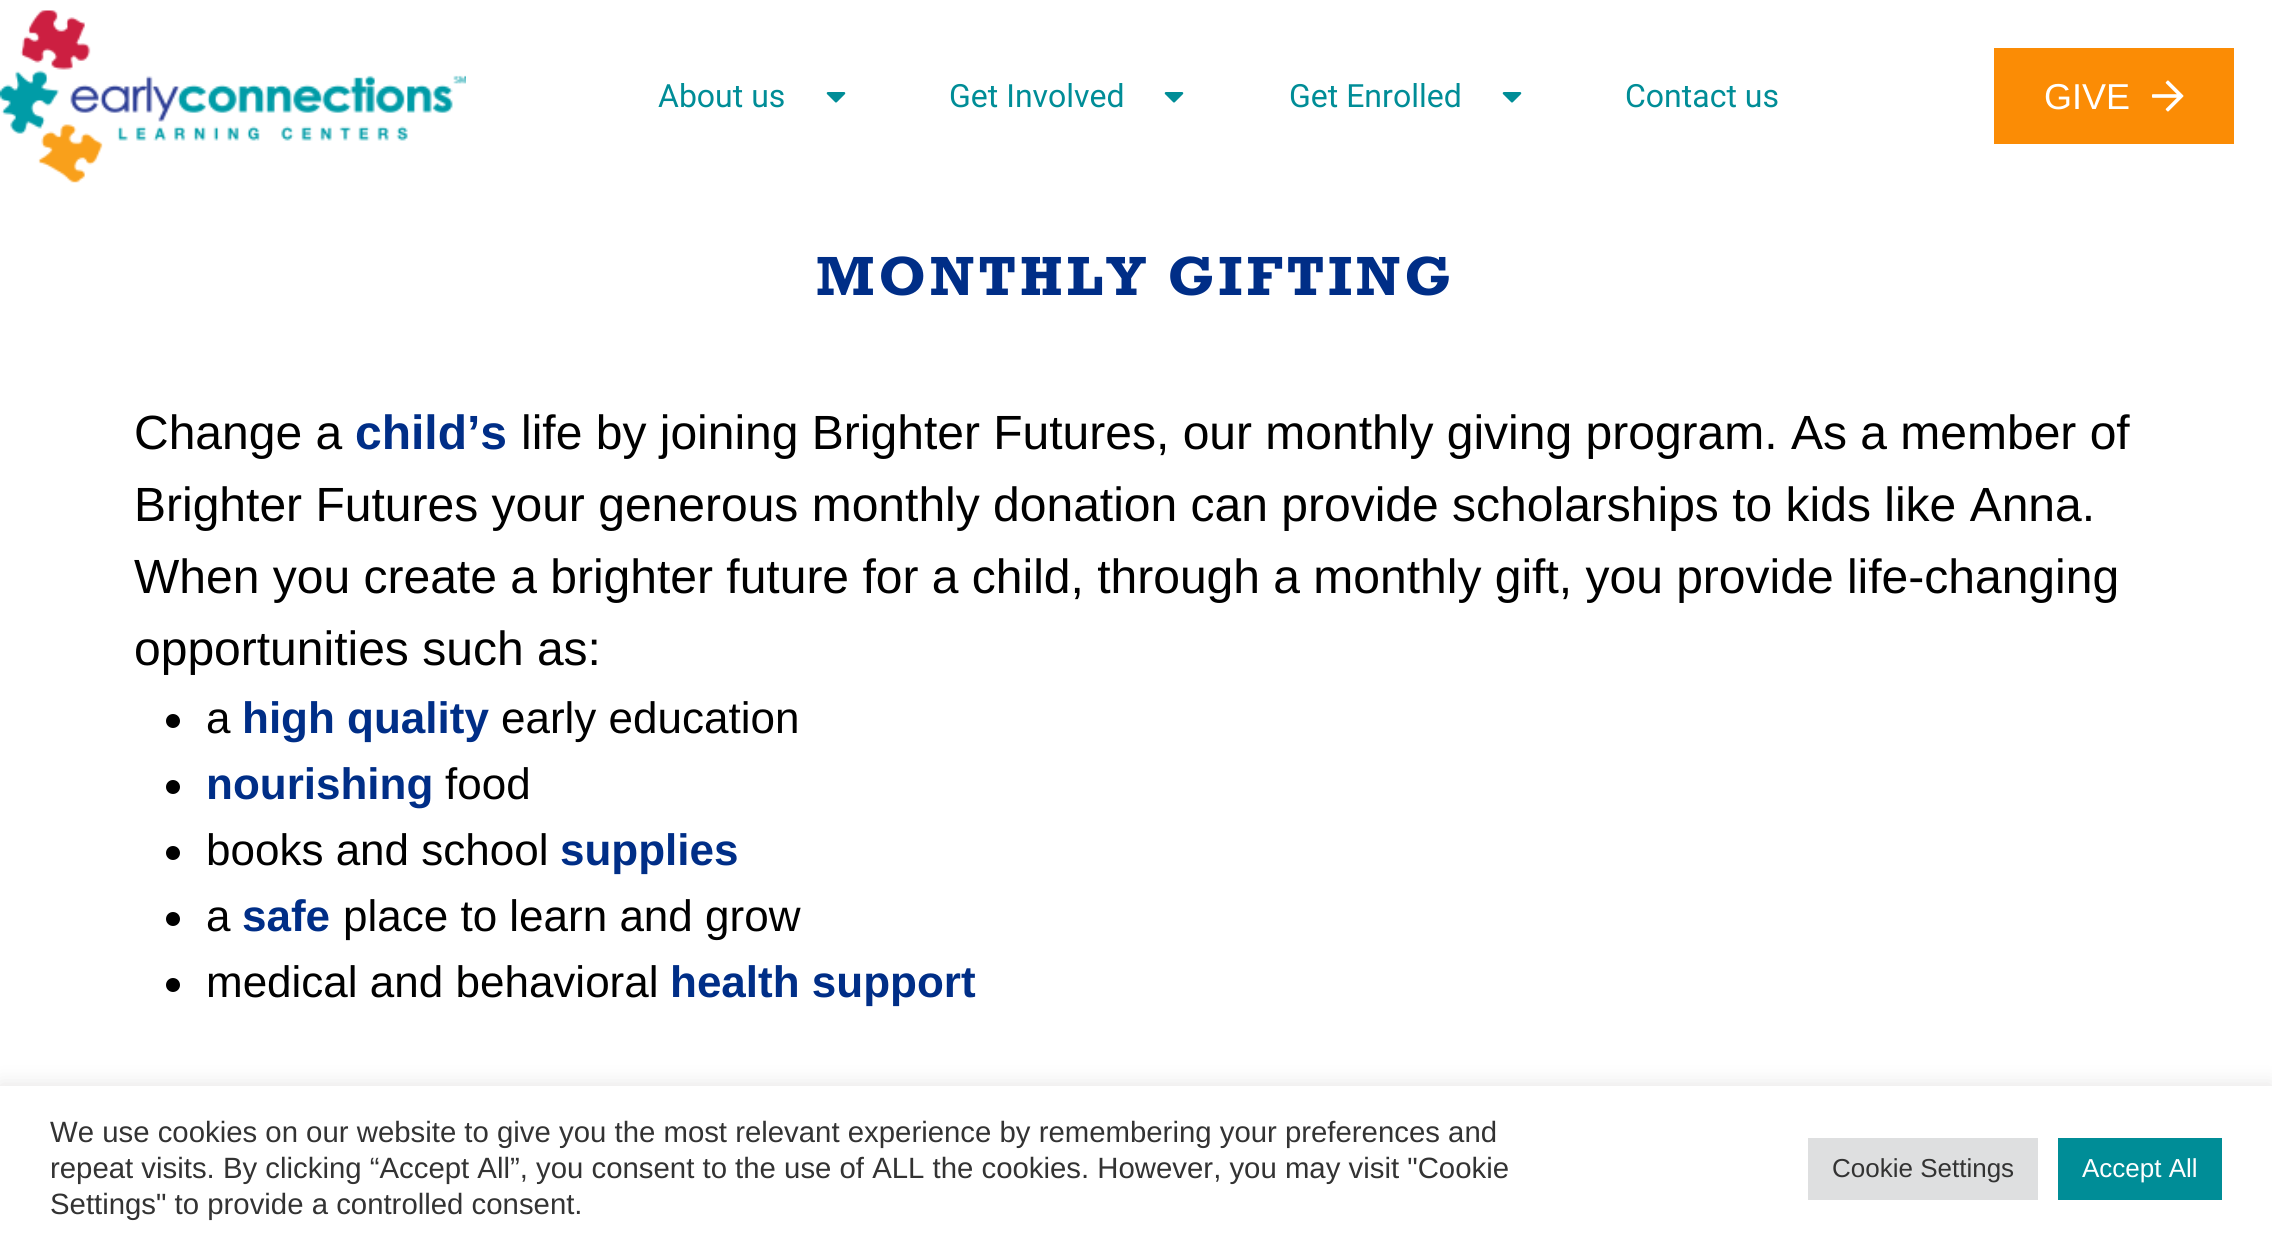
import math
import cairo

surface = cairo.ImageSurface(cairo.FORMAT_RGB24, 2272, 1249)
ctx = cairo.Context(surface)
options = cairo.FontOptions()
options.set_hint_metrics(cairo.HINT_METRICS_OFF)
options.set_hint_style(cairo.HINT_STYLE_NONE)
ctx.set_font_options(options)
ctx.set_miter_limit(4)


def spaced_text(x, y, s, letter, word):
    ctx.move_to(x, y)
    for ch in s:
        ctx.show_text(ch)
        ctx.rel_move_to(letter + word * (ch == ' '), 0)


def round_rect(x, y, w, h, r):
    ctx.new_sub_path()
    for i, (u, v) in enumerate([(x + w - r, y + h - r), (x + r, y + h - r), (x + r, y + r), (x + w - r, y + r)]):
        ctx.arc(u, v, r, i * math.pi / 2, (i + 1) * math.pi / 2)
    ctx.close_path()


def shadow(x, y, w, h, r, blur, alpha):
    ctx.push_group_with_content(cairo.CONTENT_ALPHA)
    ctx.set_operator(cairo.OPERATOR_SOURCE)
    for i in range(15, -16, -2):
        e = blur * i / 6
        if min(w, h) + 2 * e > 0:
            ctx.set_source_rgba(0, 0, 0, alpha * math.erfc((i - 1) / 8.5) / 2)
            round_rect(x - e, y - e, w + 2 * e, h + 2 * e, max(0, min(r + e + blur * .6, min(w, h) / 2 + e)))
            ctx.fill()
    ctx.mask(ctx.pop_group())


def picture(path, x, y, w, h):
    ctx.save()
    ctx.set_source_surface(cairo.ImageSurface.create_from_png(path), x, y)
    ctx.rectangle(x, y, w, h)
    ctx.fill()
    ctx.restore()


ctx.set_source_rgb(1, 1, 1)
ctx.paint()
picture("img1.png", 0, 10, 466, 173)
ctx.select_font_face("Roboto")
ctx.set_font_size(32)
ctx.set_source_rgb(0, 0.553, 0.592)
ctx.move_to(658, 107)
ctx.show_text("About us")
picture("img2.png", 826, 92, 20, 11)
ctx.move_to(949, 107)
ctx.show_text("Get Involved")
picture("img2.png", 1164, 92, 20, 11)
ctx.move_to(1289, 107)
ctx.show_text("Get Enrolled")
picture("img2.png", 1502, 92, 20, 11)
ctx.move_to(1625, 107)
ctx.show_text("Contact us")
ctx.set_source_rgb(0.984, 0.549, 0.02)
ctx.rectangle(1994, 48, 240, 96)
ctx.fill()
ctx.select_font_face("Liberation Sans")
ctx.set_font_size(36)
ctx.set_source_rgb(1, 1, 1)
ctx.move_to(2044, 109)
ctx.show_text("GIVE")
picture("img3.png", 2152, 80, 32, 32)
ctx.select_font_face("Rockwell", cairo.FONT_SLANT_NORMAL, cairo.FONT_WEIGHT_BOLD)
ctx.set_font_size(56)
ctx.set_source_rgb(0, 0.18, 0.529)
spaced_text(816, 295, "MONTHLY GIFTING", 3.9, 0)
ctx.select_font_face("Liberation Sans")
ctx.set_font_size(48)
ctx.set_source_rgb(0, 0, 0)
ctx.move_to(134, 449)
ctx.show_text("Change a")
ctx.select_font_face("Liberation Sans", cairo.FONT_SLANT_NORMAL, cairo.FONT_WEIGHT_BOLD)
ctx.set_source_rgb(0, 0.18, 0.529)
ctx.move_to(355, 449)
ctx.show_text("child’s")
ctx.select_font_face("Liberation Sans")
ctx.set_source_rgb(0, 0, 0)
ctx.move_to(521, 449)
ctx.show_text("life by joining Brighter Futures, our monthly giving program. As a member of")
ctx.move_to(134, 521)
ctx.show_text("Brighter Futures your generous monthly donation can provide scholarships to kids like Anna.")
ctx.move_to(134, 593)
ctx.show_text("When you create a brighter future for a child, through a monthly gift, you provide life-changing")
ctx.move_to(134, 665)
ctx.show_text("opportunities such as:")
ctx.new_path()
ctx.arc(173, 721, 7, 0, 2 * math.pi)
ctx.fill()
ctx.set_font_size(44)
ctx.move_to(206, 733)
ctx.show_text("a")
ctx.select_font_face("Liberation Sans", cairo.FONT_SLANT_NORMAL, cairo.FONT_WEIGHT_BOLD)
ctx.set_source_rgb(0, 0.18, 0.529)
ctx.move_to(242, 733)
ctx.show_text("high quality")
ctx.select_font_face("Liberation Sans")
ctx.set_source_rgb(0, 0, 0)
ctx.move_to(501, 733)
ctx.show_text("early education")
ctx.new_path()
ctx.arc(173, 787, 7, 0, 2 * math.pi)
ctx.fill()
ctx.select_font_face("Liberation Sans", cairo.FONT_SLANT_NORMAL, cairo.FONT_WEIGHT_BOLD)
ctx.set_source_rgb(0, 0.18, 0.529)
ctx.move_to(206, 799)
ctx.show_text("nourishing")
ctx.select_font_face("Liberation Sans")
ctx.set_source_rgb(0, 0, 0)
ctx.move_to(445, 799)
ctx.show_text("food")
ctx.new_path()
ctx.arc(173, 853, 7, 0, 2 * math.pi)
ctx.fill()
ctx.move_to(206, 865)
ctx.show_text("books and school")
ctx.select_font_face("Liberation Sans", cairo.FONT_SLANT_NORMAL, cairo.FONT_WEIGHT_BOLD)
ctx.set_source_rgb(0, 0.18, 0.529)
ctx.move_to(560, 865)
ctx.show_text("supplies")
ctx.set_source_rgb(0, 0, 0)
ctx.new_path()
ctx.arc(173, 919, 7, 0, 2 * math.pi)
ctx.fill()
ctx.select_font_face("Liberation Sans")
ctx.move_to(206, 931)
ctx.show_text("a")
ctx.select_font_face("Liberation Sans", cairo.FONT_SLANT_NORMAL, cairo.FONT_WEIGHT_BOLD)
ctx.set_source_rgb(0, 0.18, 0.529)
ctx.move_to(242, 931)
ctx.show_text("safe")
ctx.select_font_face("Liberation Sans")
ctx.set_source_rgb(0, 0, 0)
ctx.move_to(343, 931)
ctx.show_text("place to learn and grow")
ctx.new_path()
ctx.arc(173, 985, 7, 0, 2 * math.pi)
ctx.fill()
ctx.move_to(206, 997)
ctx.show_text("medical and behavioral")
ctx.select_font_face("Liberation Sans", cairo.FONT_SLANT_NORMAL, cairo.FONT_WEIGHT_BOLD)
ctx.set_source_rgb(0, 0.18, 0.529)
ctx.move_to(670, 997)
ctx.show_text("health support")
ctx.set_source_rgb(0.675, 0.671, 0.671)
shadow(0, 1084, 2272, 164, 0, 10, 0.3)
ctx.set_source_rgb(1, 1, 1)
ctx.rectangle(0, 1086, 2272, 163)
ctx.fill()
ctx.select_font_face("Liberation Sans")
ctx.set_font_size(29.35)
ctx.set_source_rgb(0.2, 0.2, 0.2)
ctx.move_to(50, 1142)
ctx.show_text("We use cookies on our website to give you the most relevant experience by remembering your preferences and")
ctx.move_to(50, 1178)
ctx.show_text("repeat visits. By clicking “Accept All”, you consent to the use of ALL the cookies. However, you may visit \"Cookie")
ctx.move_to(50, 1214)
ctx.show_text("Settings\" to provide a controlled consent.")
ctx.set_source_rgb(0.871, 0.875, 0.878)
ctx.rectangle(1808, 1138, 230, 62)
ctx.fill()
ctx.set_font_size(26)
ctx.set_source_rgb(0.2, 0.2, 0.2)
ctx.move_to(1832, 1177)
ctx.show_text("Cookie Settings")
ctx.set_source_rgb(0, 0.553, 0.592)
ctx.rectangle(2058, 1138, 164, 62)
ctx.fill()
ctx.set_source_rgb(1, 1, 1)
ctx.move_to(2082, 1177)
ctx.show_text("Accept All")
surface.write_to_png("page.png")
